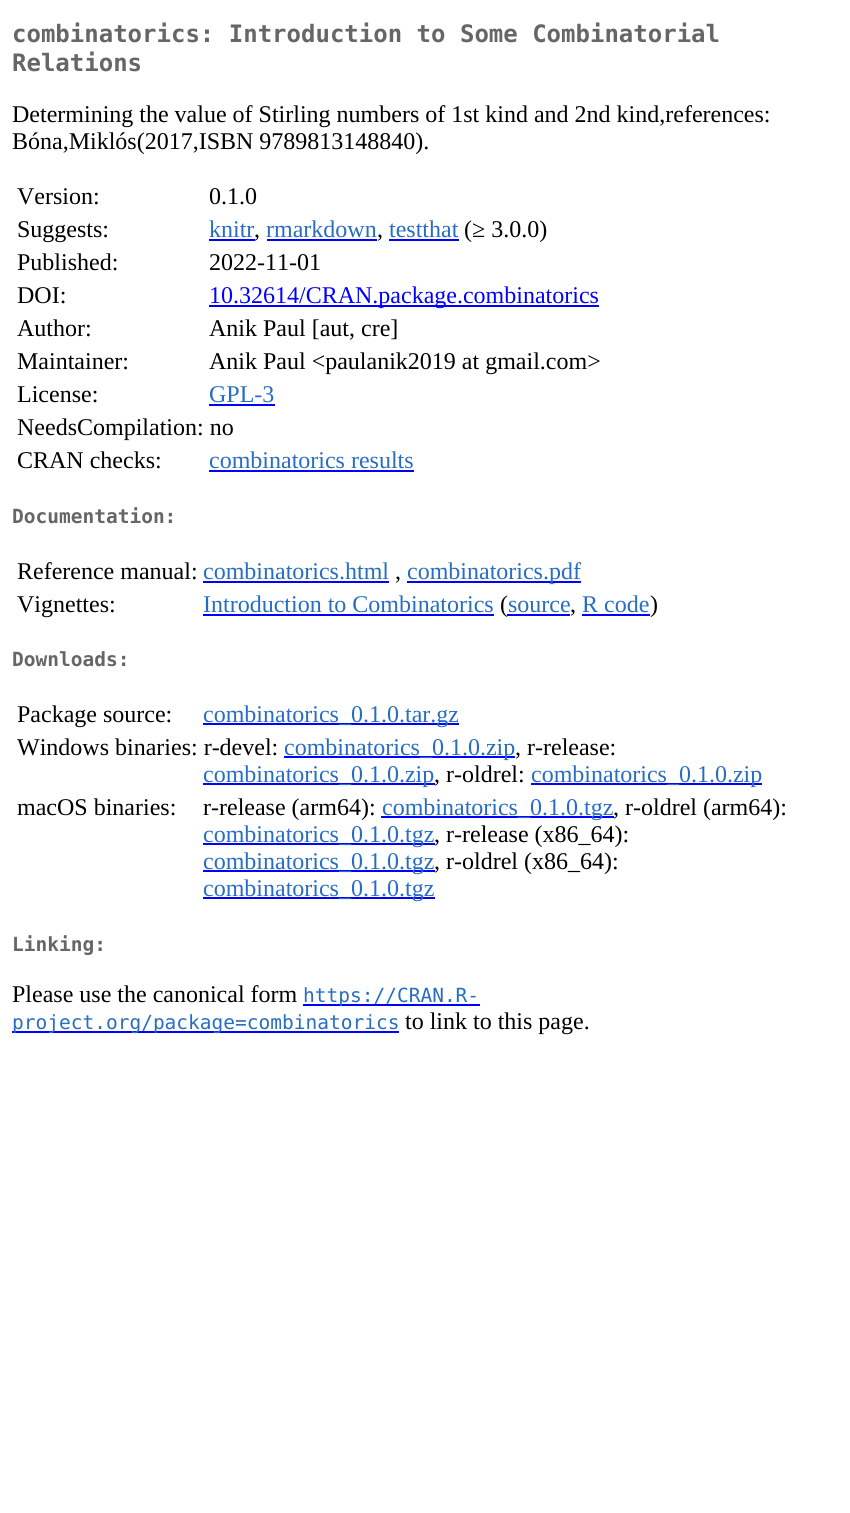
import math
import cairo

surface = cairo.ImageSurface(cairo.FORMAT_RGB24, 850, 1513)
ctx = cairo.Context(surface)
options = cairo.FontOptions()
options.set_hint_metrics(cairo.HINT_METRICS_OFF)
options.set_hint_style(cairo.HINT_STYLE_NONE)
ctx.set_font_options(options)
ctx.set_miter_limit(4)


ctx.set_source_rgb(1, 1, 1)
ctx.paint()
ctx.select_font_face("DejaVu Sans Mono", cairo.FONT_SLANT_NORMAL, cairo.FONT_WEIGHT_BOLD)
ctx.set_font_size(24)
ctx.set_source_rgb(0.4, 0.4, 0.4)
ctx.move_to(12, 42)
ctx.show_text("combinatorics: Introduction to Some Combinatorial")
ctx.move_to(12, 71)
ctx.show_text("Relations")
ctx.select_font_face("Liberation Serif")
ctx.set_source_rgb(0, 0, 0)
ctx.move_to(12, 122)
ctx.show_text("Determining the value of Stirling numbers of 1st kind and 2nd kind,references:")
ctx.move_to(12, 149)
ctx.show_text("Bóna,Miklós(2017,ISBN 9789813148840).")
ctx.move_to(17, 204)
ctx.show_text("Version:")
ctx.move_to(209, 204)
ctx.show_text("0.1.0")
ctx.move_to(17, 237)
ctx.show_text("Suggests:")
ctx.set_source_rgb(0.153, 0.427, 0.765)
ctx.move_to(209, 237)
ctx.show_text("knitr")
ctx.set_source_rgb(0, 0, 1)
ctx.rectangle(209, 239, 46, 2)
ctx.fill()
ctx.set_source_rgb(0, 0, 0)
ctx.move_to(254, 237)
ctx.show_text(",")
ctx.set_source_rgb(0.153, 0.427, 0.765)
ctx.move_to(266, 237)
ctx.show_text("rmarkdown")
ctx.set_source_rgb(0, 0, 1)
ctx.rectangle(267, 239, 110, 2)
ctx.fill()
ctx.set_source_rgb(0, 0, 0)
ctx.move_to(377, 237)
ctx.show_text(",")
ctx.set_source_rgb(0.153, 0.427, 0.765)
ctx.move_to(389, 237)
ctx.show_text("testthat")
ctx.set_source_rgb(0, 0, 1)
ctx.rectangle(389, 239, 70, 2)
ctx.fill()
ctx.set_source_rgb(0, 0, 0)
ctx.move_to(464, 237)
ctx.show_text("(≥ 3.0.0)")
ctx.move_to(17, 270)
ctx.show_text("Published:")
ctx.move_to(209, 270)
ctx.show_text("2022-11-01")
ctx.move_to(17, 303)
ctx.show_text("DOI:")
ctx.set_source_rgb(0, 0, 1)
ctx.rectangle(209, 305, 390, 2)
ctx.fill()
ctx.move_to(209, 303)
ctx.show_text("10.32614/CRAN.package.combinatorics")
ctx.set_source_rgb(0, 0, 0)
ctx.move_to(17, 336)
ctx.show_text("Author:")
ctx.move_to(209, 336)
ctx.show_text("Anik Paul [aut, cre]")
ctx.move_to(17, 369)
ctx.show_text("Maintainer:")
ctx.move_to(209, 369)
ctx.show_text("Anik Paul <paulanik2019 at gmail.com>")
ctx.move_to(17, 402)
ctx.show_text("License:")
ctx.set_source_rgb(0.153, 0.427, 0.765)
ctx.move_to(209, 402)
ctx.show_text("GPL-3")
ctx.set_source_rgb(0, 0, 1)
ctx.rectangle(209, 404, 66, 2)
ctx.fill()
ctx.set_source_rgb(0, 0, 0)
ctx.move_to(17, 435)
ctx.show_text("NeedsCompilation: no")
ctx.move_to(17, 468)
ctx.show_text("CRAN checks:")
ctx.set_source_rgb(0.153, 0.427, 0.765)
ctx.move_to(209, 468)
ctx.show_text("combinatorics results")
ctx.set_source_rgb(0, 0, 1)
ctx.rectangle(209, 470, 205, 2)
ctx.fill()
ctx.select_font_face("DejaVu Sans Mono", cairo.FONT_SLANT_NORMAL, cairo.FONT_WEIGHT_BOLD)
ctx.set_font_size(19.5)
ctx.set_source_rgb(0.4, 0.4, 0.4)
ctx.move_to(12, 523)
ctx.show_text("Documentation:")
ctx.select_font_face("Liberation Serif")
ctx.set_font_size(24)
ctx.set_source_rgb(0, 0, 0)
ctx.move_to(17, 579)
ctx.show_text("Reference manual:")
ctx.set_source_rgb(0.153, 0.427, 0.765)
ctx.move_to(203, 579)
ctx.show_text("combinatorics.html")
ctx.set_source_rgb(0, 0, 1)
ctx.rectangle(203, 581, 186, 2)
ctx.fill()
ctx.set_source_rgb(0, 0, 0)
ctx.move_to(395, 579)
ctx.show_text(",")
ctx.set_source_rgb(0, 0, 1)
ctx.rectangle(407, 581, 174, 2)
ctx.fill()
ctx.set_source_rgb(0.153, 0.427, 0.765)
ctx.move_to(407, 579)
ctx.show_text("combinatorics.pdf")
ctx.set_source_rgb(0, 0, 0)
ctx.move_to(17, 612)
ctx.show_text("Vignettes:")
ctx.set_source_rgb(0.153, 0.427, 0.765)
ctx.move_to(203, 612)
ctx.show_text("Introduction to Combinatorics")
ctx.set_source_rgb(0, 0, 1)
ctx.rectangle(203, 614, 291, 2)
ctx.fill()
ctx.set_source_rgb(0, 0, 0)
ctx.move_to(500, 612)
ctx.show_text("(")
ctx.set_source_rgb(0.153, 0.427, 0.765)
ctx.move_to(508, 612)
ctx.show_text("source")
ctx.set_source_rgb(0, 0, 1)
ctx.rectangle(507, 614, 63, 2)
ctx.fill()
ctx.set_source_rgb(0, 0, 0)
ctx.move_to(570, 612)
ctx.show_text(",")
ctx.set_source_rgb(0.153, 0.427, 0.765)
ctx.move_to(582, 612)
ctx.show_text("R code")
ctx.set_source_rgb(0, 0, 1)
ctx.rectangle(582, 614, 68, 2)
ctx.fill()
ctx.set_source_rgb(0, 0, 0)
ctx.move_to(650, 612)
ctx.show_text(")")
ctx.select_font_face("DejaVu Sans Mono", cairo.FONT_SLANT_NORMAL, cairo.FONT_WEIGHT_BOLD)
ctx.set_font_size(19.5)
ctx.set_source_rgb(0.4, 0.4, 0.4)
ctx.move_to(12, 666)
ctx.show_text("Downloads:")
ctx.select_font_face("Liberation Serif")
ctx.set_font_size(24)
ctx.set_source_rgb(0, 0, 0)
ctx.move_to(17, 722)
ctx.show_text("Package source:")
ctx.set_source_rgb(0, 0, 1)
ctx.rectangle(203, 723, 256, 2)
ctx.fill()
ctx.set_source_rgb(0.153, 0.427, 0.765)
ctx.move_to(203, 722)
ctx.show_text("combinatorics_0.1.0.tar.gz")
ctx.set_source_rgb(0, 0, 0)
ctx.move_to(17, 755)
ctx.show_text("Windows binaries: r-devel:")
ctx.set_source_rgb(0, 0, 1)
ctx.rectangle(284, 756, 231, 2)
ctx.fill()
ctx.set_source_rgb(0.153, 0.427, 0.765)
ctx.move_to(284, 755)
ctx.show_text("combinatorics_0.1.0.zip")
ctx.set_source_rgb(0, 0, 0)
ctx.move_to(515, 755)
ctx.show_text(", r-release:")
ctx.set_source_rgb(0, 0, 1)
ctx.rectangle(203, 783, 232, 2)
ctx.fill()
ctx.set_source_rgb(0.153, 0.427, 0.765)
ctx.move_to(203, 782)
ctx.show_text("combinatorics_0.1.0.zip")
ctx.set_source_rgb(0, 0, 0)
ctx.move_to(434, 782)
ctx.show_text(", r-oldrel:")
ctx.set_source_rgb(0, 0, 1)
ctx.rectangle(531, 783, 231, 2)
ctx.fill()
ctx.set_source_rgb(0.153, 0.427, 0.765)
ctx.move_to(531, 782)
ctx.show_text("combinatorics_0.1.0.zip")
ctx.set_source_rgb(0, 0, 0)
ctx.move_to(17, 815)
ctx.show_text("macOS binaries:")
ctx.move_to(203, 815)
ctx.show_text("r-release (arm64):")
ctx.set_source_rgb(0, 0, 1)
ctx.rectangle(381, 816, 233, 2)
ctx.fill()
ctx.set_source_rgb(0.153, 0.427, 0.765)
ctx.move_to(382, 815)
ctx.show_text("combinatorics_0.1.0.tgz")
ctx.set_source_rgb(0, 0, 0)
ctx.move_to(613, 815)
ctx.show_text(", r-oldrel (arm64):")
ctx.set_source_rgb(0, 0, 1)
ctx.rectangle(203, 843, 232, 2)
ctx.fill()
ctx.set_source_rgb(0.153, 0.427, 0.765)
ctx.move_to(203, 842)
ctx.show_text("combinatorics_0.1.0.tgz")
ctx.set_source_rgb(0, 0, 0)
ctx.move_to(434, 842)
ctx.show_text(", r-release (x86_64):")
ctx.set_source_rgb(0, 0, 1)
ctx.rectangle(203, 870, 232, 2)
ctx.fill()
ctx.set_source_rgb(0.153, 0.427, 0.765)
ctx.move_to(203, 869)
ctx.show_text("combinatorics_0.1.0.tgz")
ctx.set_source_rgb(0, 0, 0)
ctx.move_to(434, 869)
ctx.show_text(", r-oldrel (x86_64):")
ctx.set_source_rgb(0, 0, 1)
ctx.rectangle(203, 897, 232, 2)
ctx.fill()
ctx.set_source_rgb(0.153, 0.427, 0.765)
ctx.move_to(203, 896)
ctx.show_text("combinatorics_0.1.0.tgz")
ctx.select_font_face("DejaVu Sans Mono", cairo.FONT_SLANT_NORMAL, cairo.FONT_WEIGHT_BOLD)
ctx.set_font_size(19.5)
ctx.set_source_rgb(0.4, 0.4, 0.4)
ctx.move_to(12, 951)
ctx.show_text("Linking:")
ctx.select_font_face("Liberation Serif")
ctx.set_font_size(24)
ctx.set_source_rgb(0, 0, 0)
ctx.move_to(12, 1002)
ctx.show_text("Please use the canonical form")
ctx.set_source_rgb(0, 0, 1)
ctx.rectangle(303, 1004, 177, 2)
ctx.fill()
ctx.select_font_face("DejaVu Sans Mono")
ctx.set_font_size(19.5)
ctx.set_source_rgb(0.153, 0.427, 0.765)
ctx.move_to(303, 1002)
ctx.show_text("https://CRAN.R-")
ctx.set_source_rgb(0, 0, 1)
ctx.rectangle(12, 1031, 387, 2)
ctx.fill()
ctx.set_source_rgb(0.153, 0.427, 0.765)
ctx.move_to(12, 1029)
ctx.show_text("project.org/package=combinatorics")
ctx.select_font_face("Liberation Serif")
ctx.set_font_size(24)
ctx.set_source_rgb(0, 0, 0)
ctx.move_to(405, 1029)
ctx.show_text("to link to this page.")
surface.write_to_png("page.png")
